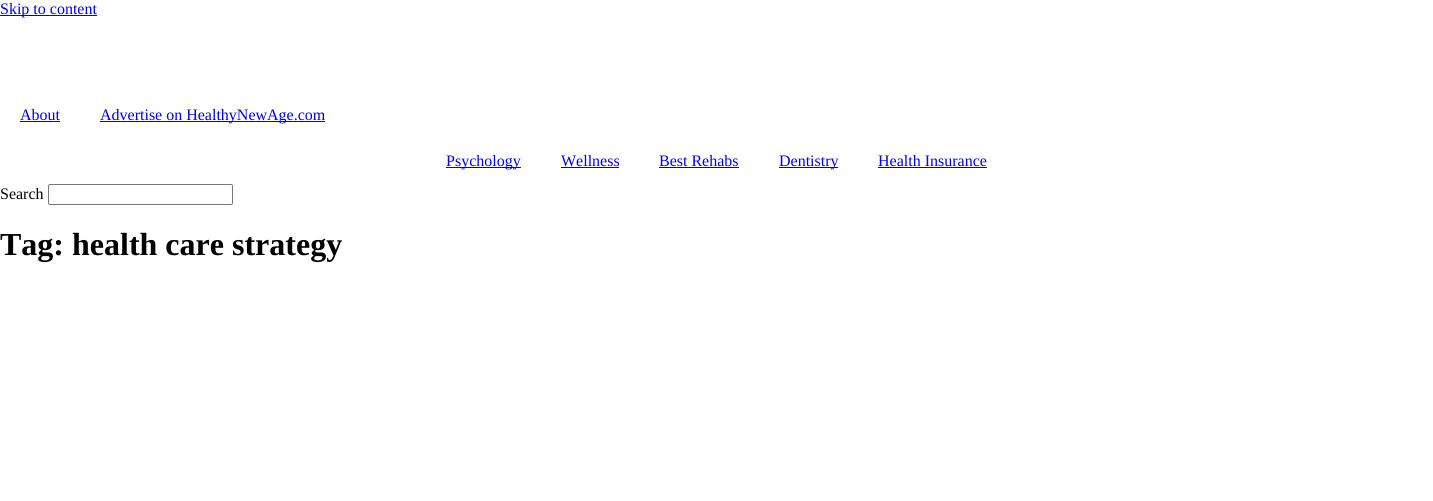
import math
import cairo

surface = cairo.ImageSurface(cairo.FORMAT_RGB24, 1433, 501)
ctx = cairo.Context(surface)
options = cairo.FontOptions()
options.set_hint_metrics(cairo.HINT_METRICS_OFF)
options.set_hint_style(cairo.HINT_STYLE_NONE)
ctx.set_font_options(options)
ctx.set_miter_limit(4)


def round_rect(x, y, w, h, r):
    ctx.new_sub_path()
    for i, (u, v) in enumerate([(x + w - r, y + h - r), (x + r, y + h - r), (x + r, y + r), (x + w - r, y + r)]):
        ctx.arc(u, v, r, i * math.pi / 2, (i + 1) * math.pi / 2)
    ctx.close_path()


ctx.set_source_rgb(1, 1, 1)
ctx.paint()
ctx.set_source_rgb(0, 0, 0.933)
ctx.rectangle(0, 15, 97, 1)
ctx.fill()
ctx.select_font_face("Liberation Serif")
ctx.set_font_size(16)
ctx.move_to(0, 14)
ctx.show_text("Skip to content")
ctx.move_to(20, 120)
ctx.show_text("About")
ctx.rectangle(20, 121, 40, 1)
ctx.fill()
ctx.rectangle(100, 121, 225, 1)
ctx.fill()
ctx.move_to(100, 120)
ctx.show_text("Advertise on HealthyNewAge.com")
ctx.rectangle(446, 167, 75, 1)
ctx.fill()
ctx.move_to(446, 166)
ctx.show_text("Psychology")
ctx.move_to(561, 166)
ctx.show_text("Wellness")
ctx.rectangle(561, 167, 58, 1)
ctx.fill()
ctx.move_to(659, 166)
ctx.show_text("Best Rehabs")
ctx.rectangle(659, 167, 80, 1)
ctx.fill()
ctx.rectangle(779, 167, 59, 1)
ctx.fill()
ctx.move_to(779, 166)
ctx.show_text("Dentistry")
ctx.move_to(878, 166)
ctx.show_text("Health Insurance")
ctx.rectangle(878, 167, 109, 1)
ctx.fill()
ctx.set_source_rgb(0, 0, 0)
ctx.move_to(0, 199)
ctx.show_text("Search")
round_rect(48.5, 184.5, 184, 20, 1.5)
ctx.set_source_rgb(0.463, 0.463, 0.463)
ctx.set_line_width(1)
ctx.stroke()
ctx.select_font_face("Liberation Serif", cairo.FONT_SLANT_NORMAL, cairo.FONT_WEIGHT_BOLD)
ctx.set_font_size(32)
ctx.set_source_rgb(0, 0, 0)
ctx.move_to(0, 255)
ctx.show_text("Tag: health care strategy")
surface.write_to_png("page.png")
